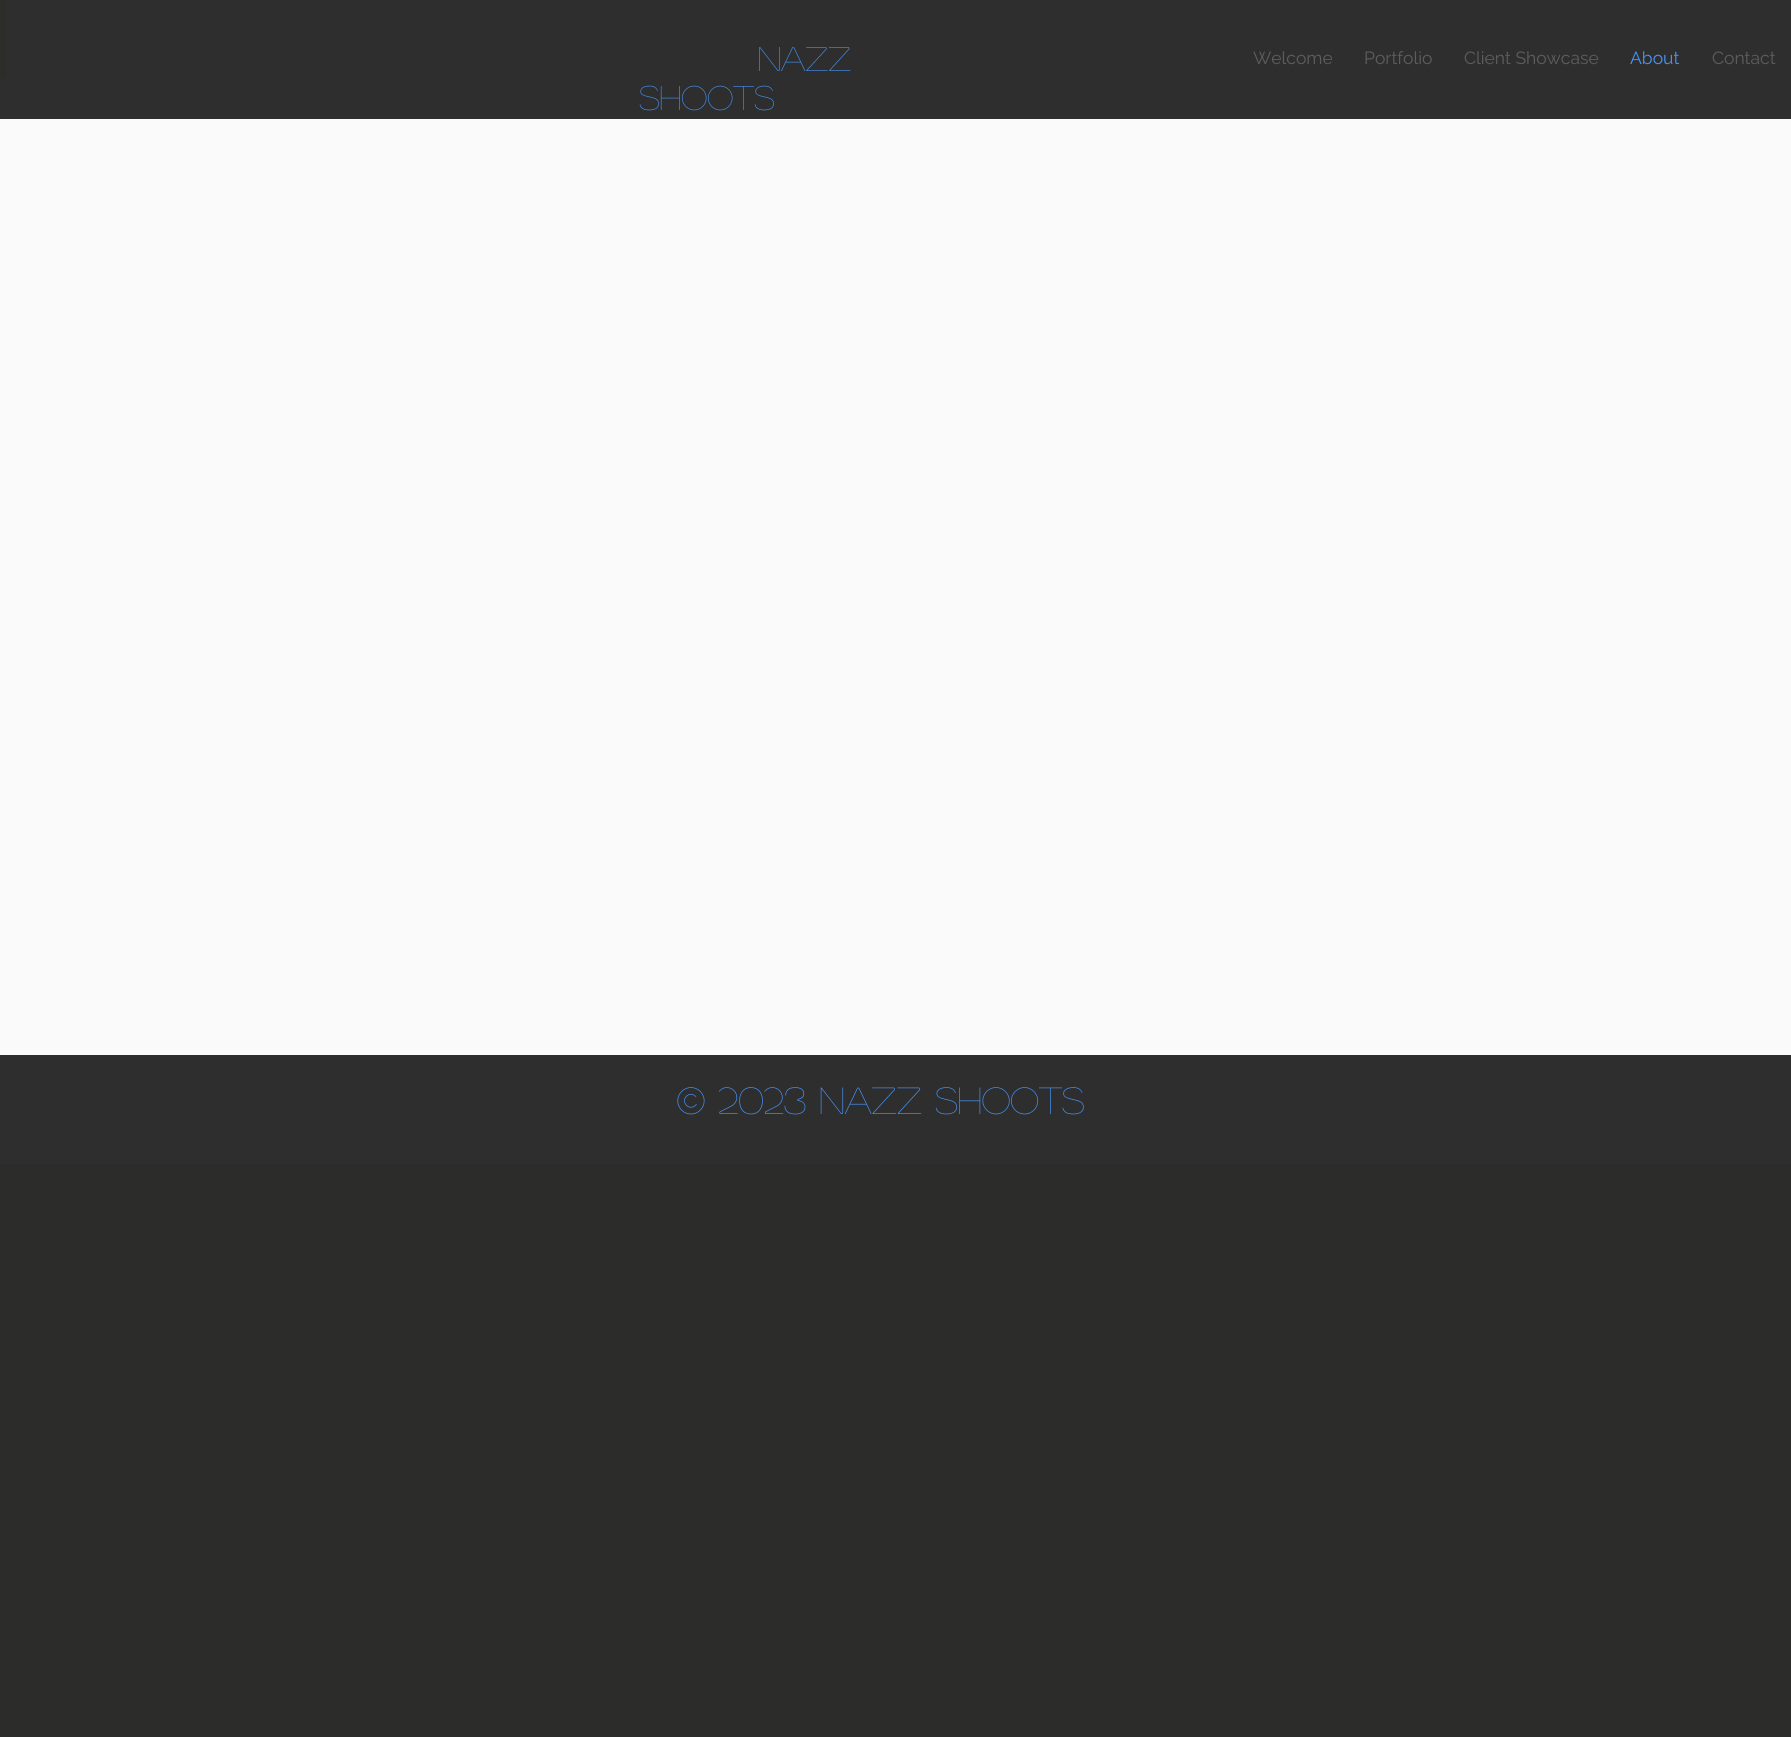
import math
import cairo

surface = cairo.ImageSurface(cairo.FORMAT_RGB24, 1791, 1737)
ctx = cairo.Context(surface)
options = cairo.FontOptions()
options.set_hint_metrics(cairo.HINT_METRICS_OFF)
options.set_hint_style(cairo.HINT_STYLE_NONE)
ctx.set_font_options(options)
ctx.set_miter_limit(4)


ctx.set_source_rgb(0.173, 0.173, 0.169)
ctx.paint()
ctx.set_source_rgb(0.184, 0.18, 0.18)
ctx.rectangle(0, 0, 1791, 119)
ctx.fill()
ctx.set_source_rgb(0.173, 0.173, 0.169)
ctx.rectangle(0, 0, 6, 79)
ctx.fill()
ctx.select_font_face("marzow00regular")
ctx.set_font_size(34)
ctx.set_source_rgb(0.271, 0.584, 0.969)
ctx.move_to(758, 71)
ctx.show_text("Nazz")
ctx.move_to(639, 110)
ctx.show_text("Shoots")
ctx.select_font_face("Raleway")
ctx.set_font_size(17.5)
ctx.set_source_rgb(0.369, 0.365, 0.365)
ctx.move_to(1253, 64)
ctx.show_text("Welcome")
ctx.move_to(1364, 64)
ctx.show_text("Portfolio")
ctx.move_to(1464, 64)
ctx.show_text("Client Showcase")
ctx.set_source_rgb(0.271, 0.584, 0.969)
ctx.move_to(1630, 64)
ctx.show_text("About")
ctx.set_source_rgb(0.369, 0.365, 0.365)
ctx.move_to(1712, 64)
ctx.show_text("Contact")
ctx.set_source_rgb(0.98, 0.98, 0.98)
ctx.rectangle(0, 119, 1791, 936)
ctx.fill()
ctx.set_source_rgb(0.184, 0.18, 0.18)
ctx.rectangle(0, 1055, 1791, 109)
ctx.fill()
ctx.select_font_face("marzow00regular")
ctx.set_font_size(37.5)
ctx.set_source_rgb(0.271, 0.584, 0.969)
ctx.move_to(677, 1114)
ctx.show_text("© 2023 nazz shoots")
surface.write_to_png("page.png")
